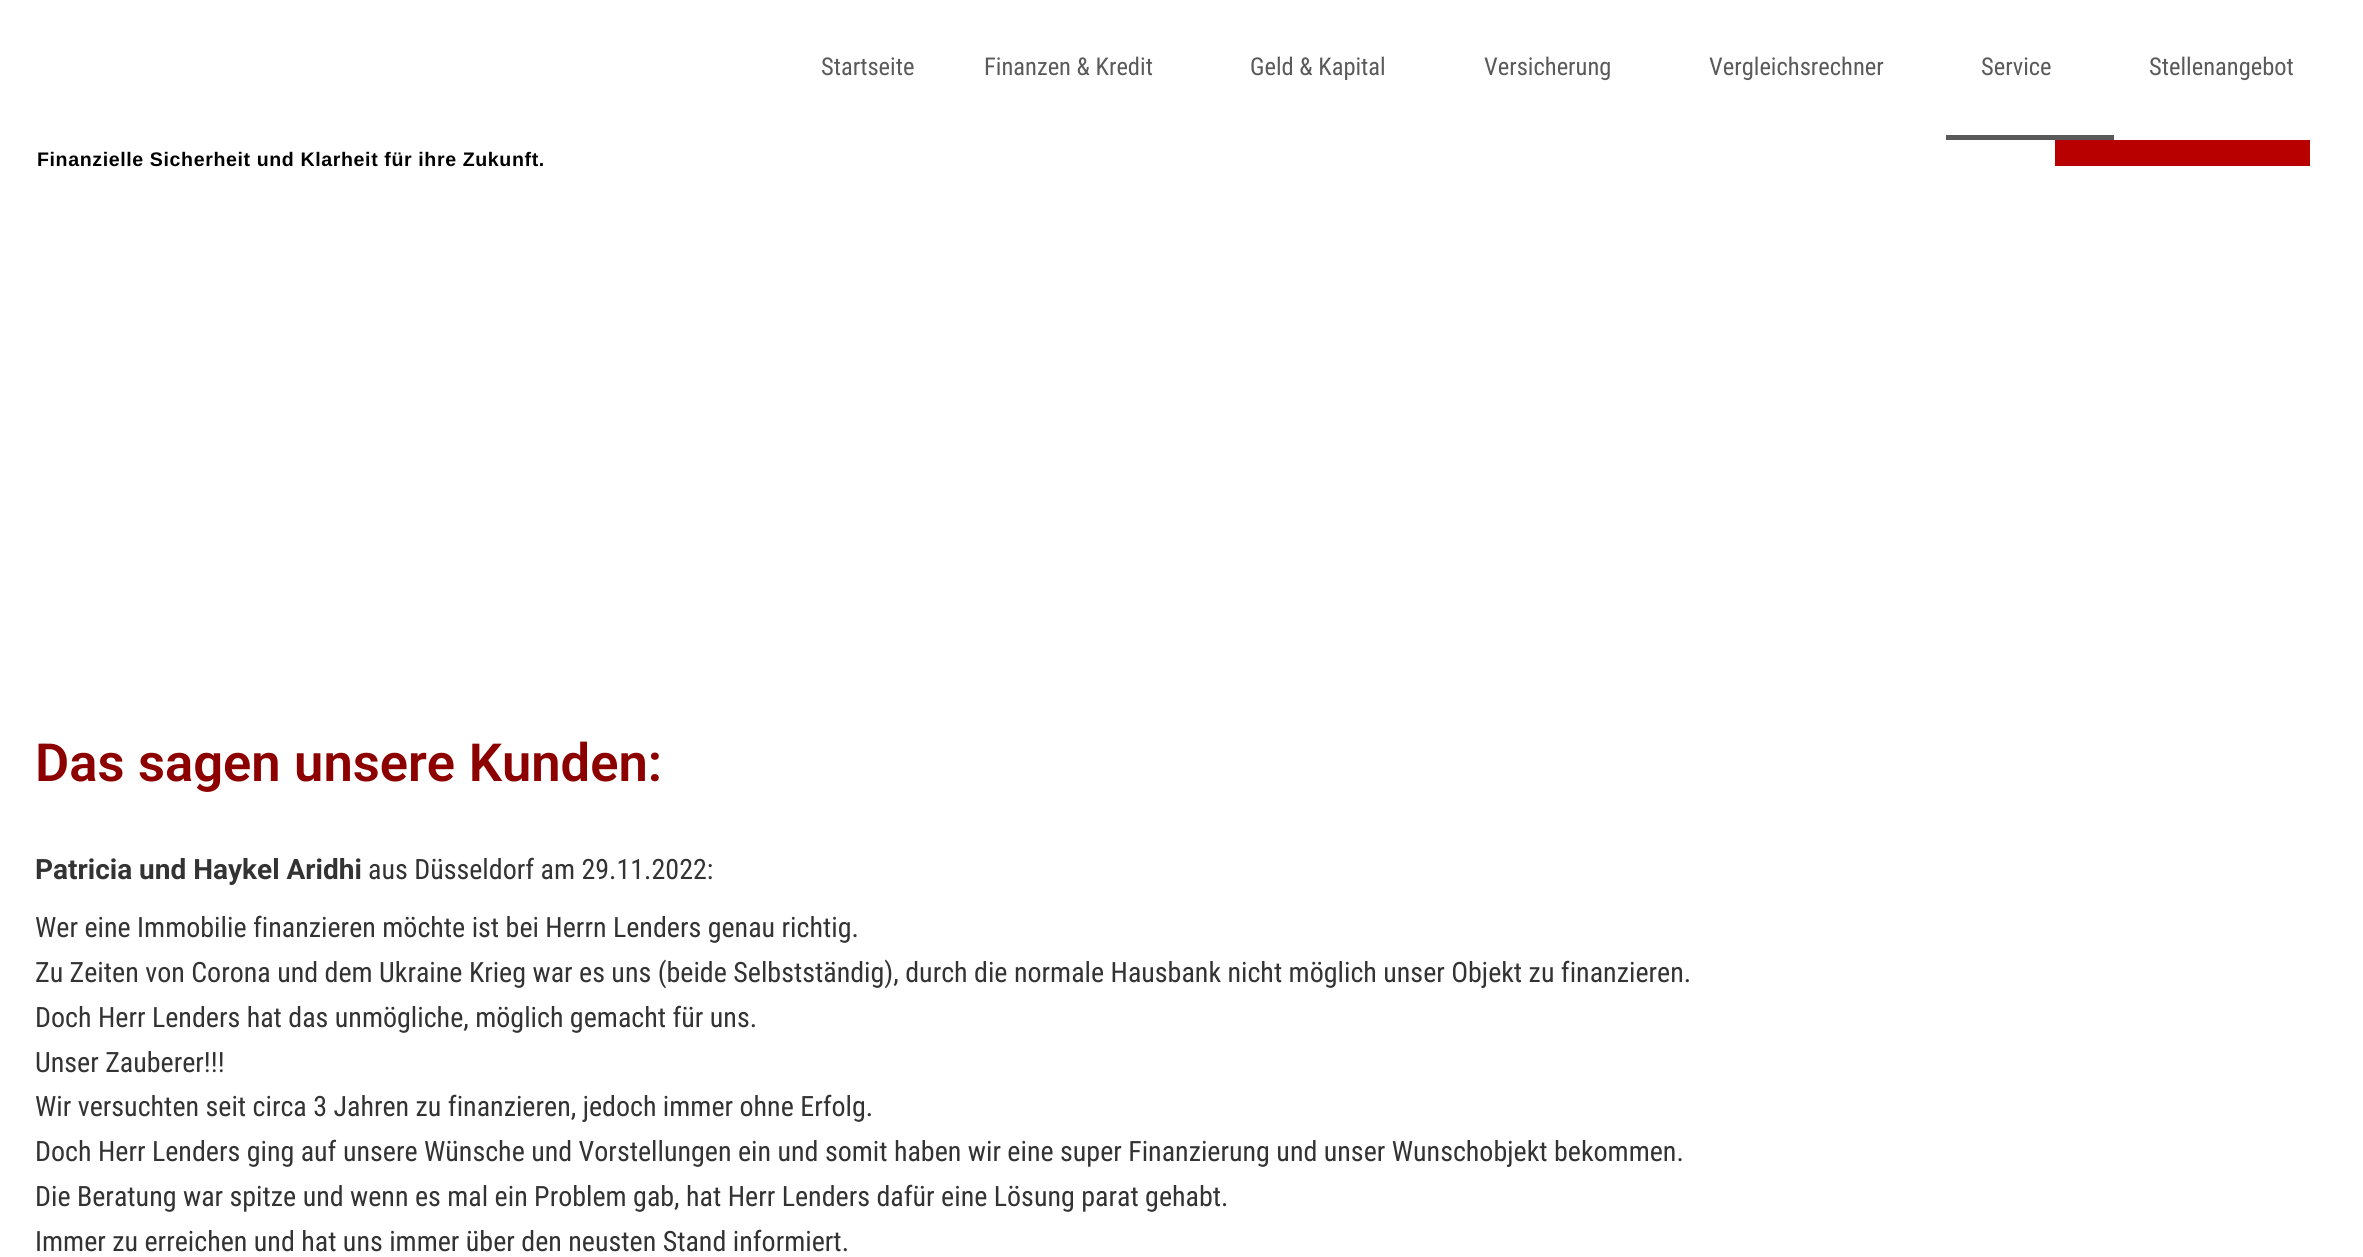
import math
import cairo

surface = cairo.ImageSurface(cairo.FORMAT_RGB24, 2363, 1257)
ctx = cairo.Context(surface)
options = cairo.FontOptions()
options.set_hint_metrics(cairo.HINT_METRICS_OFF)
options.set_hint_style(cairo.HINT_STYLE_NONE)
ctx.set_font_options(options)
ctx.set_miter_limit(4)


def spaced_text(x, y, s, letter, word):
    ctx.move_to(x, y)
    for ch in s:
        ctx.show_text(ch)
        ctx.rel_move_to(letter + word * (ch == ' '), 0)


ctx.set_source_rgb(1, 1, 1)
ctx.paint()
ctx.select_font_face("Roboto Condensed")
ctx.set_font_size(24.5)
ctx.set_source_rgb(0.353, 0.353, 0.353)
ctx.move_to(821, 75)
ctx.show_text("Startseite")
ctx.move_to(984, 75)
ctx.show_text("Finanzen & Kredit")
ctx.move_to(1250, 75)
ctx.show_text("Geld & Kapital")
ctx.move_to(1484, 75)
ctx.show_text("Versicherung")
ctx.move_to(1709, 75)
ctx.show_text("Vergleichsrechner")
ctx.rectangle(1946, 135, 168, 5)
ctx.fill()
ctx.move_to(1981, 75)
ctx.show_text("Service")
ctx.move_to(2149, 75)
ctx.show_text("Stellenangebot")
ctx.select_font_face("Liberation Sans", cairo.FONT_SLANT_NORMAL, cairo.FONT_WEIGHT_BOLD)
ctx.set_font_size(19.6)
ctx.set_source_rgb(0, 0, 0)
spaced_text(37, 166, "Finanzielle Sicherheit und Klarheit für ihre Zukunft.", 0.6, 0)
ctx.set_source_rgb(0.722, 0, 0)
ctx.rectangle(2055, 140, 255, 26)
ctx.fill()
ctx.select_font_face("Roboto SemiBold")
ctx.set_font_size(52.5)
ctx.set_source_rgb(0.549, 0, 0)
spaced_text(35, 781, "Das sagen unsere Kunden:", 0, 0.5)
ctx.select_font_face("Roboto", cairo.FONT_SLANT_NORMAL, cairo.FONT_WEIGHT_BOLD)
ctx.set_font_size(28)
ctx.set_source_rgb(0.2, 0.2, 0.2)
ctx.move_to(35, 879)
ctx.show_text("Patricia und Haykel Aridhi")
ctx.select_font_face("Roboto Condensed")
ctx.move_to(368, 879)
ctx.show_text("aus Düsseldorf am 29.11.2022:")
ctx.move_to(35, 937)
ctx.show_text("Wer eine Immobilie finanzieren möchte ist bei Herrn Lenders genau richtig.")
ctx.move_to(35, 982)
ctx.show_text("Zu Zeiten von Corona und dem Ukraine Krieg war es uns (beide Selbstständig), durch die normale Hausbank nicht möglich unser Objekt zu finanzieren.")
ctx.move_to(35, 1027)
ctx.show_text("Doch Herr Lenders hat das unmögliche, möglich gemacht für uns.")
ctx.move_to(35, 1072)
ctx.show_text("Unser Zauberer!!!")
ctx.move_to(35, 1116)
ctx.show_text("Wir versuchten seit circa 3 Jahren zu finanzieren, jedoch immer ohne Erfolg.")
ctx.move_to(35, 1161)
ctx.show_text("Doch Herr Lenders ging auf unsere Wünsche und Vorstellungen ein und somit haben wir eine super Finanzierung und unser Wunschobjekt bekommen.")
ctx.move_to(35, 1206)
ctx.show_text("Die Beratung war spitze und wenn es mal ein Problem gab, hat Herr Lenders dafür eine Lösung parat gehabt.")
ctx.move_to(35, 1251)
ctx.show_text("Immer zu erreichen und hat uns immer über den neusten Stand informiert.")
surface.write_to_png("page.png")
